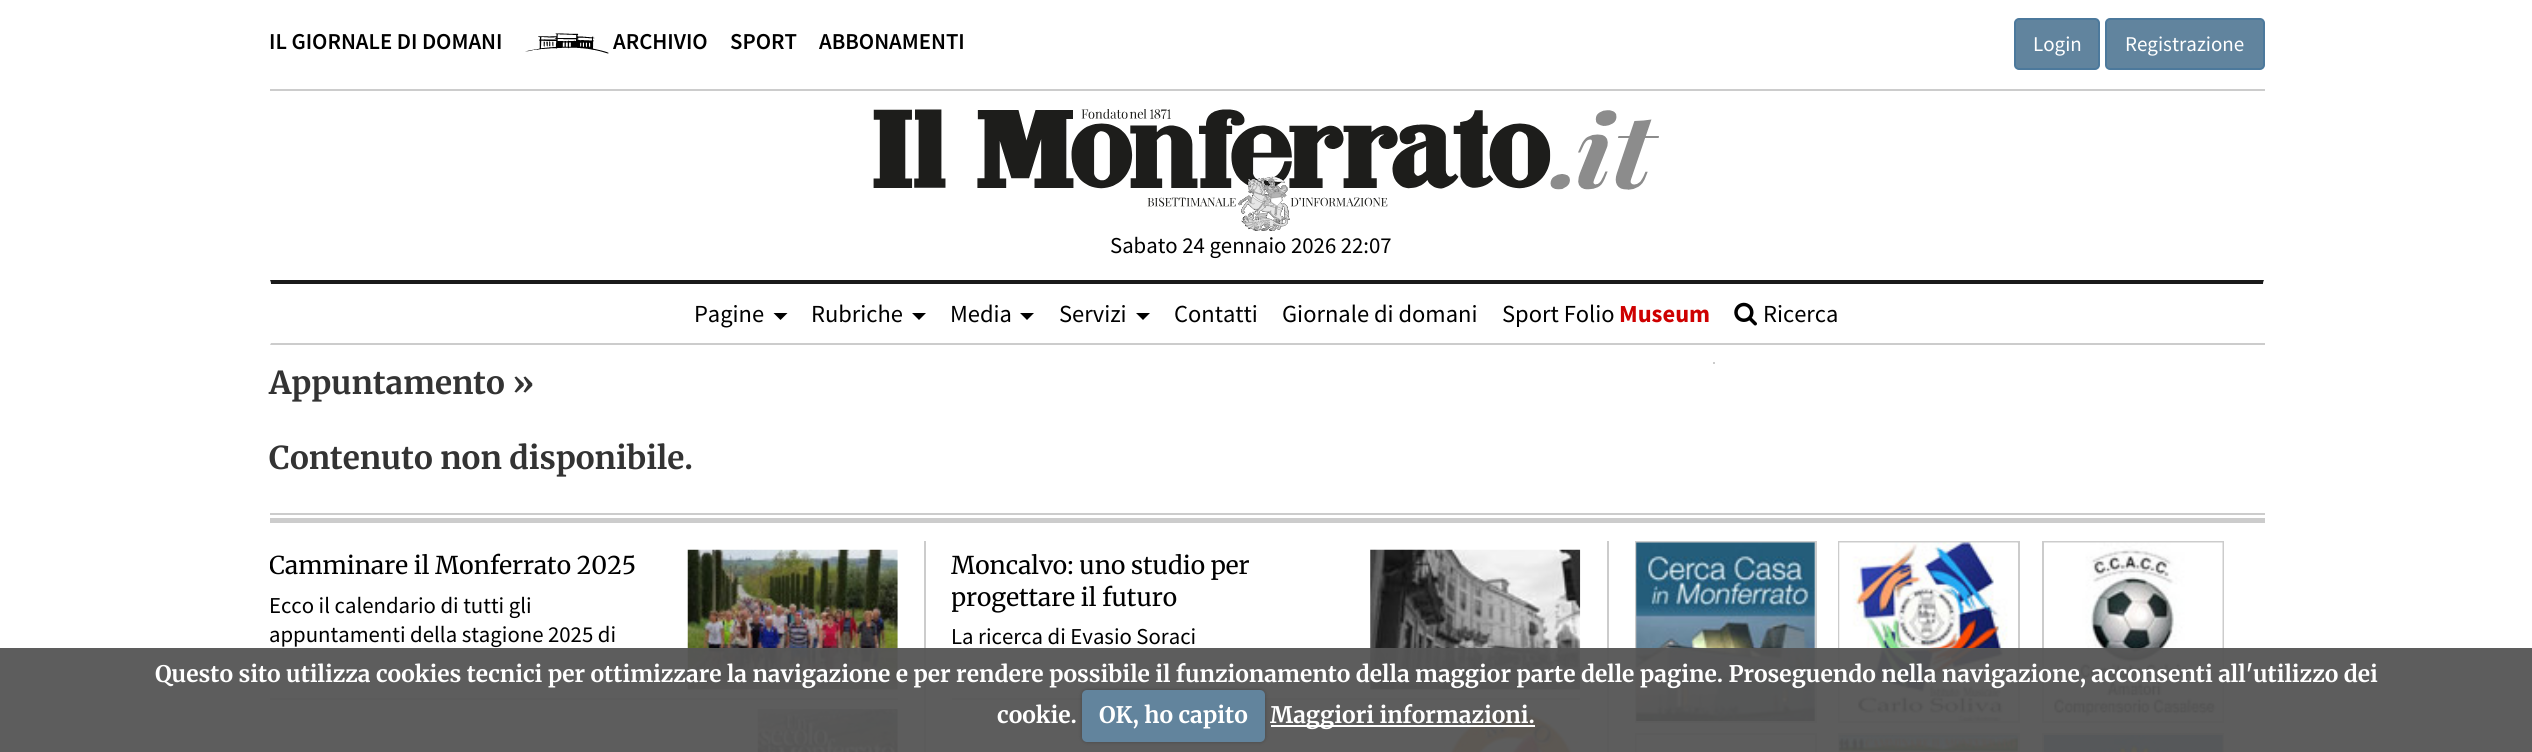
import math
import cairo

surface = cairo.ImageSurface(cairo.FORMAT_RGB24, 2532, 752)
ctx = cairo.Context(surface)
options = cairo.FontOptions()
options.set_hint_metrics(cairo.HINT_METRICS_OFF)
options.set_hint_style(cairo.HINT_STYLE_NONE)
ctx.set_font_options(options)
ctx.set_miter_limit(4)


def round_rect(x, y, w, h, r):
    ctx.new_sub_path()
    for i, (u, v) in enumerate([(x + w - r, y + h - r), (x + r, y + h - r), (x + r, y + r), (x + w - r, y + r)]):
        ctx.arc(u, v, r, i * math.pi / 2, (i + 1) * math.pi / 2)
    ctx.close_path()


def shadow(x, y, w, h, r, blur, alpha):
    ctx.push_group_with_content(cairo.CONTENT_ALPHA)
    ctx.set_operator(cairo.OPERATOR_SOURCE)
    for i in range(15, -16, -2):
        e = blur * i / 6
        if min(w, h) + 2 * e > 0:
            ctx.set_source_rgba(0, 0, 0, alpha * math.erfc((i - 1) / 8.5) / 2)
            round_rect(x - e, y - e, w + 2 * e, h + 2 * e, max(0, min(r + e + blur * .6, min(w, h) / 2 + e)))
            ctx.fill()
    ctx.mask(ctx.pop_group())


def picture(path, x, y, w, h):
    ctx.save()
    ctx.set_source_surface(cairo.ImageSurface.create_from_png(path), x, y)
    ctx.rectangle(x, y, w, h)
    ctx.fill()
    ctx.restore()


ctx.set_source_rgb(1, 1, 1)
ctx.paint()
ctx.set_source_rgb(0.8, 0.8, 0.8)
ctx.rectangle(270, 89, 1995, 2)
ctx.fill()
ctx.select_font_face("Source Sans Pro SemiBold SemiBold")
ctx.set_font_size(22.75)
ctx.set_source_rgb(0, 0, 0)
ctx.move_to(269, 49)
ctx.show_text("IL GIORNALE DI DOMANI")
picture("img1.png", 525, 33, 84, 21)
ctx.move_to(613, 49)
ctx.show_text("ARCHIVIO")
ctx.move_to(730, 49)
ctx.show_text("SPORT")
ctx.move_to(819, 49)
ctx.show_text("ABBONAMENTI")
ctx.set_source_rgb(0.38, 0.518, 0.62)
round_rect(2015, 19, 84, 50, 4)
ctx.fill_preserve()
ctx.set_source_rgb(0.298, 0.475, 0.612)
ctx.stroke()
ctx.select_font_face("Source Sans Pro")
ctx.set_font_size(21)
ctx.set_source_rgb(1, 1, 1)
ctx.move_to(2033, 51)
ctx.show_text("Login")
ctx.set_source_rgb(0.38, 0.518, 0.62)
round_rect(2106, 19, 158, 50, 4)
ctx.fill_preserve()
ctx.set_source_rgb(0.298, 0.475, 0.612)
ctx.stroke()
ctx.set_source_rgb(1, 1, 1)
ctx.move_to(2125, 51)
ctx.show_text("Registrazione")
picture("img2.png", 873, 109, 786, 122)
ctx.set_font_size(22.75)
ctx.set_source_rgb(0, 0, 0)
ctx.move_to(1110, 253)
ctx.show_text("Sabato 24 gennaio 2026 22:07")
ctx.set_source_rgb(0.102, 0.102, 0.102)
ctx.new_path()
ctx.move_to(270, 280)
ctx.line_to(2264, 280)
ctx.line_to(2263, 284)
ctx.line_to(271, 284)
ctx.close_path()
ctx.fill()
ctx.set_source_rgb(1, 1, 1)
ctx.new_path()
ctx.move_to(2264, 280)
ctx.line_to(2264, 345)
ctx.line_to(2263, 343)
ctx.line_to(2263, 284)
ctx.close_path()
ctx.fill()
ctx.set_source_rgb(0.8, 0.8, 0.8)
ctx.rectangle(270, 343, 1995, 2)
ctx.fill()
ctx.set_source_rgb(1, 1, 1)
ctx.new_path()
ctx.move_to(270, 345)
ctx.line_to(270, 280)
ctx.line_to(271, 284)
ctx.line_to(271, 343)
ctx.close_path()
ctx.fill()
ctx.set_font_size(24.5)
ctx.set_source_rgb(0, 0, 0)
ctx.move_to(694, 322)
ctx.show_text("Pagine")
ctx.new_path()
ctx.move_to(773.5, 313)
ctx.line_to(787.5, 313)
ctx.line_to(780.5, 320)
ctx.close_path()
ctx.fill()
ctx.move_to(811, 322)
ctx.show_text("Rubriche")
ctx.new_path()
ctx.move_to(912, 313)
ctx.line_to(926, 313)
ctx.line_to(919, 320)
ctx.close_path()
ctx.fill()
ctx.move_to(950, 322)
ctx.show_text("Media")
ctx.new_path()
ctx.move_to(1020, 313)
ctx.line_to(1034, 313)
ctx.line_to(1027, 320)
ctx.close_path()
ctx.fill()
ctx.move_to(1059, 322)
ctx.show_text("Servizi")
ctx.new_path()
ctx.move_to(1136, 313)
ctx.line_to(1150, 313)
ctx.line_to(1143, 320)
ctx.close_path()
ctx.fill()
ctx.move_to(1174, 322)
ctx.show_text("Contatti")
ctx.move_to(1282, 322)
ctx.show_text("Giornale di domani")
ctx.move_to(1502, 322)
ctx.show_text("Sport Folio")
ctx.select_font_face("Source Sans Pro", cairo.FONT_SLANT_NORMAL, cairo.FONT_WEIGHT_BOLD)
ctx.set_source_rgb(0.808, 0, 0)
ctx.move_to(1619, 322)
ctx.show_text("Museum")
picture("img3.png", 1734, 302, 23, 24)
ctx.select_font_face("Source Sans Pro")
ctx.set_source_rgb(0, 0, 0)
ctx.move_to(1763, 322)
ctx.show_text("Ricerca")
ctx.set_source_rgb(0.8, 0.8, 0.8)
ctx.rectangle(1713, 362, 2, 2)
ctx.fill()
ctx.select_font_face("Merriweather", cairo.FONT_SLANT_NORMAL, cairo.FONT_WEIGHT_BOLD)
ctx.set_font_size(31.5)
ctx.set_source_rgb(0.2, 0.2, 0.2)
ctx.move_to(269, 394)
ctx.show_text("Appuntamento »")
ctx.move_to(269, 469)
ctx.show_text("Contenuto non disponibile.")
ctx.set_source_rgb(0.8, 0.8, 0.8)
ctx.rectangle(270, 513, 1995, 2)
ctx.fill()
ctx.rectangle(270, 518, 1995, 5)
ctx.fill()
ctx.rectangle(924, 541, 2, 211)
ctx.fill()
ctx.rectangle(270, 698, 628, 2)
ctx.fill()
ctx.save()
ctx.rectangle(270, 550, 400, 140)
ctx.clip()
ctx.select_font_face("Merriweather")
ctx.set_font_size(24.5)
ctx.set_source_rgb(0, 0, 0)
ctx.move_to(269, 574)
ctx.show_text("Camminare il Monferrato 2025")
ctx.restore()
ctx.select_font_face("Source Sans Pro")
ctx.set_font_size(22.75)
ctx.set_source_rgb(0, 0, 0)
ctx.move_to(269, 613)
ctx.show_text("Ecco il calendario di tutti gli")
ctx.move_to(269, 642)
ctx.show_text("appuntamenti della stagione 2025 di")
picture("img4.png", 687, 549, 211, 141)
picture("img5.png", 757, 708, 141, 44)
ctx.set_source_rgb(0.8, 0.8, 0.8)
ctx.rectangle(1607, 541, 2, 211)
ctx.fill()
ctx.rectangle(952, 698, 628, 2)
ctx.fill()
ctx.select_font_face("Merriweather")
ctx.set_font_size(24.5)
ctx.set_source_rgb(0, 0, 0)
ctx.move_to(951, 574)
ctx.show_text("Moncalvo: uno studio per")
ctx.save()
ctx.rectangle(952, 550, 401, 140)
ctx.clip()
ctx.move_to(951, 606)
ctx.show_text("progettare il futuro")
ctx.restore()
ctx.select_font_face("Source Sans Pro")
ctx.set_font_size(22.75)
ctx.move_to(951, 644)
ctx.show_text("La ricerca di Evasio Soraci")
picture("img6.png", 1370, 549, 211, 141)
picture("img7.png", 1440, 709, 140, 43)
ctx.rectangle(1636, 542, 180, 180)
ctx.set_source_rgb(0.8, 0.8, 0.8)
ctx.stroke()
picture("img8.png", 1636, 542, 179, 179)
ctx.rectangle(1839, 542, 180, 180)
ctx.stroke()
picture("img9.png", 1839, 542, 179, 179)
ctx.rectangle(2043, 542, 180, 180)
ctx.stroke()
picture("img10.png", 2044, 542, 179, 179)
ctx.rectangle(1636, 734, 180, 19)
ctx.stroke()
ctx.set_source_rgb(0.949, 0.949, 0.949)
ctx.rectangle(1636, 735, 1, 17)
ctx.fill()
ctx.rectangle(1839, 734, 180, 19)
ctx.set_source_rgb(0.8, 0.8, 0.8)
ctx.stroke()
picture("img11.png", 1839, 735, 179, 17)
ctx.rectangle(2043, 734, 180, 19)
ctx.stroke()
picture("img12.png", 2044, 735, 179, 17)
ctx.set_source_rgba(0.337, 0.337, 0.337, 0.95)
ctx.rectangle(0, 648, 2532, 104)
ctx.fill()
ctx.select_font_face("Merriweather", cairo.FONT_SLANT_NORMAL, cairo.FONT_WEIGHT_BOLD)
ctx.set_source_rgb(1, 1, 1)
ctx.move_to(155, 682)
ctx.show_text("Questo sito utilizza cookies tecnici per ottimizzare la navigazione e per rendere possibile il funzionamento della maggior parte delle pagine. Proseguendo nella navigazione, acconsenti all'utilizzo dei")
ctx.move_to(997, 723)
ctx.show_text("cookie.")
ctx.set_source_rgb(0, 0, 0)
shadow(1082, 690, 183, 52, 5, 2, 0.25)
ctx.set_source_rgb(0.384, 0.518, 0.616)
round_rect(1082, 690, 183, 52, 5)
ctx.fill()
ctx.set_source_rgb(1, 1, 1)
ctx.move_to(1099, 723)
ctx.show_text("OK, ho capito")
ctx.rectangle(1271, 725, 264, 2)
ctx.fill()
ctx.move_to(1270, 723)
ctx.show_text("Maggiori informazioni.")
surface.write_to_png("page.png")
